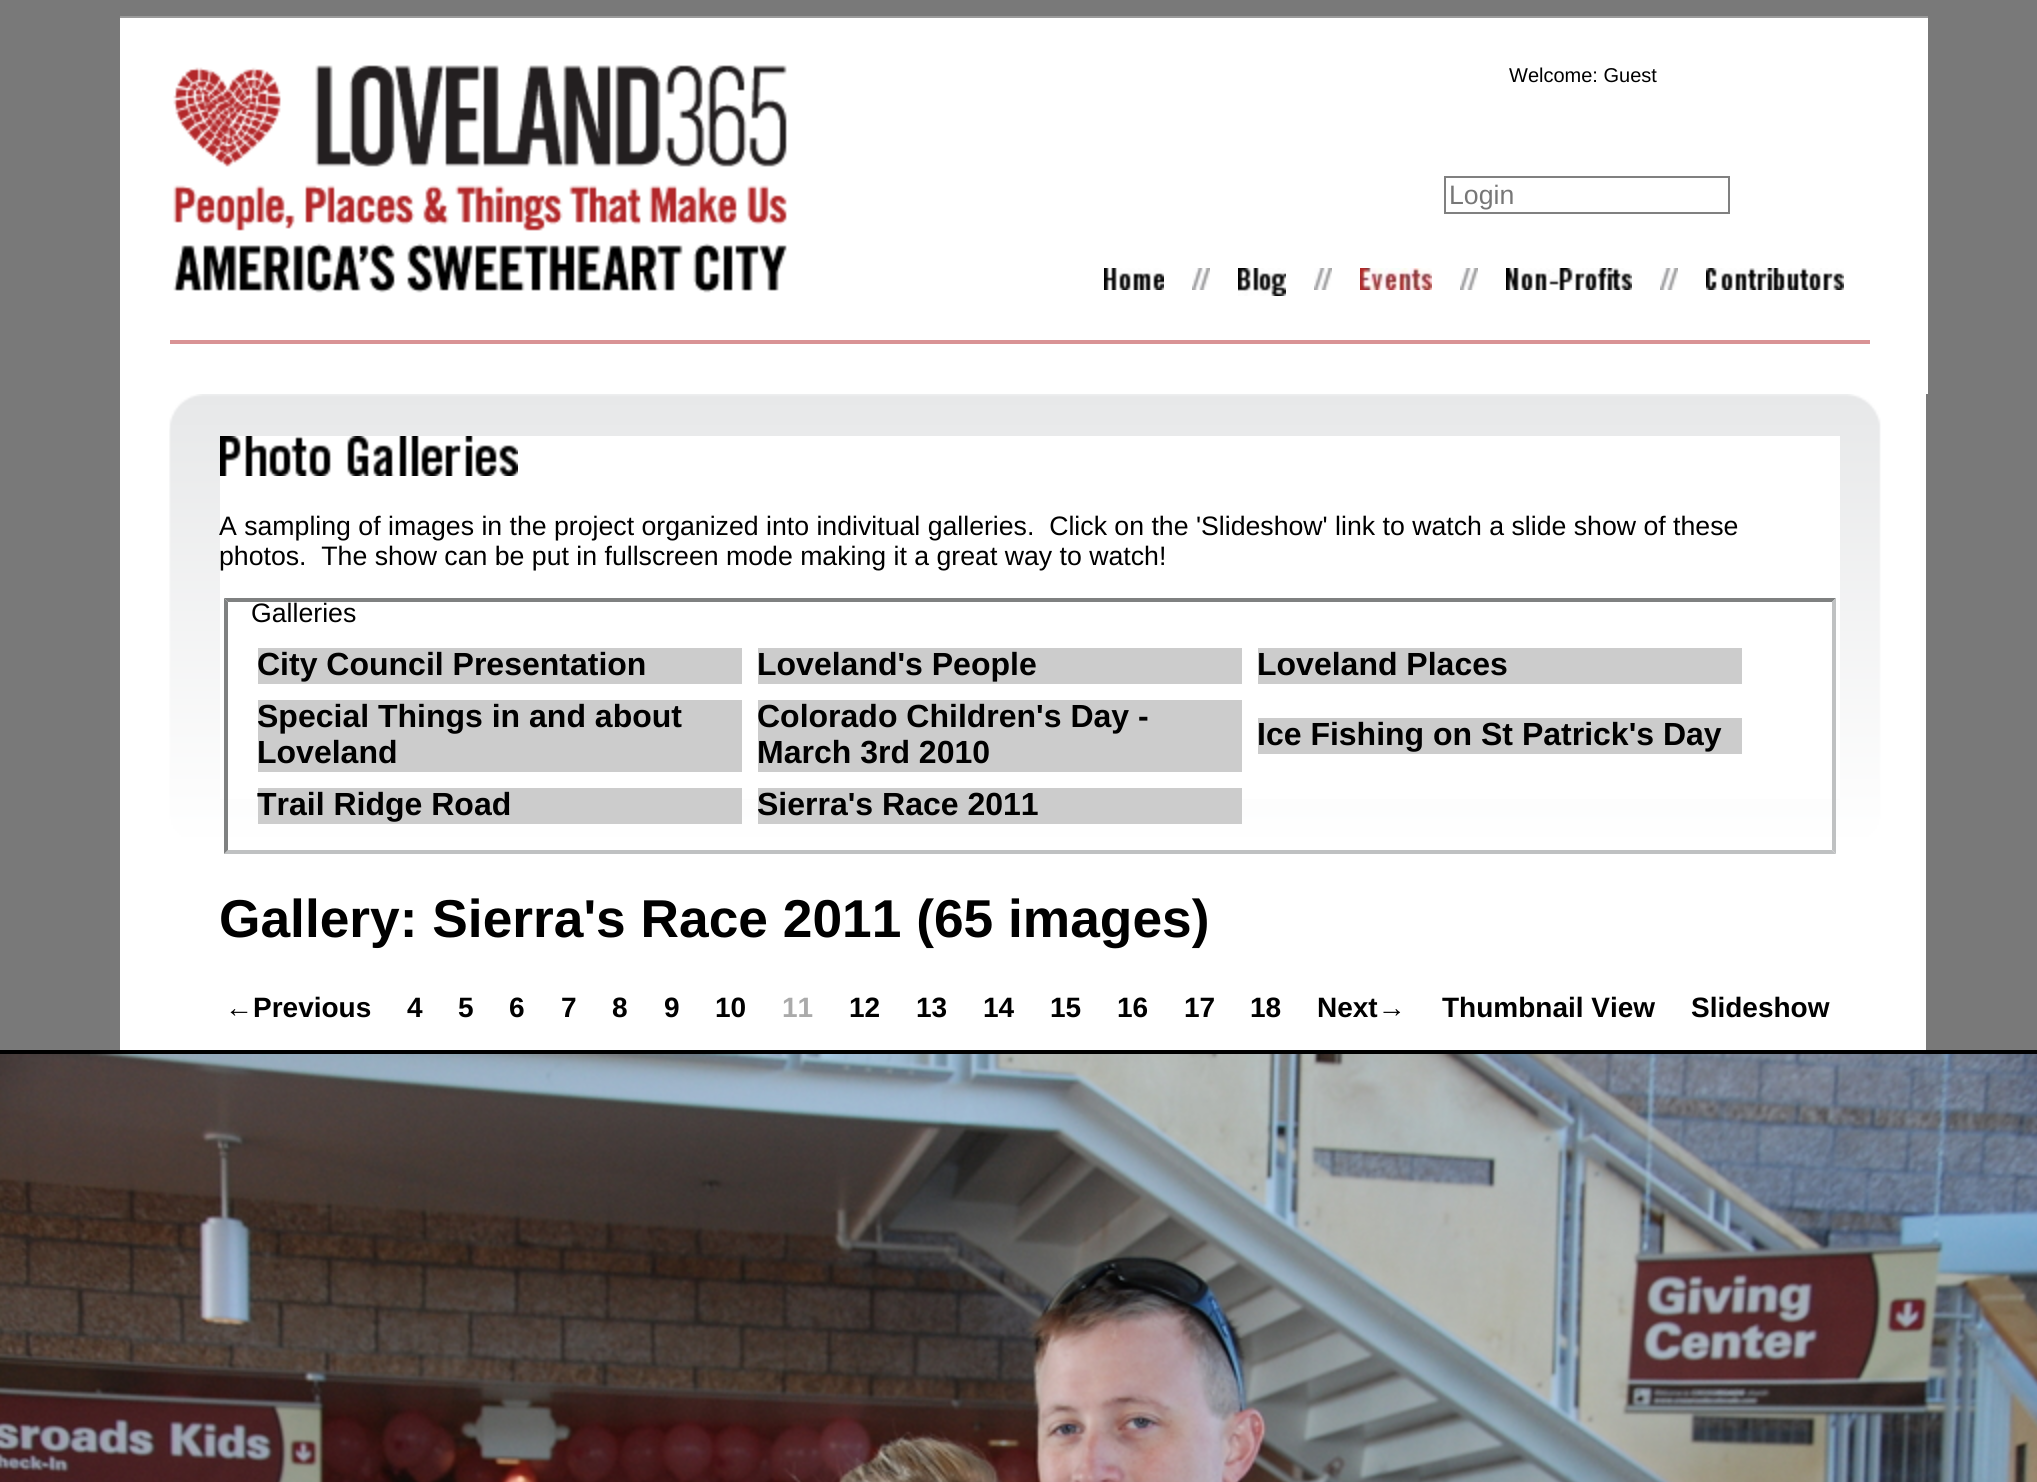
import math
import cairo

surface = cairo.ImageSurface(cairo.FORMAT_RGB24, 2037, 1482)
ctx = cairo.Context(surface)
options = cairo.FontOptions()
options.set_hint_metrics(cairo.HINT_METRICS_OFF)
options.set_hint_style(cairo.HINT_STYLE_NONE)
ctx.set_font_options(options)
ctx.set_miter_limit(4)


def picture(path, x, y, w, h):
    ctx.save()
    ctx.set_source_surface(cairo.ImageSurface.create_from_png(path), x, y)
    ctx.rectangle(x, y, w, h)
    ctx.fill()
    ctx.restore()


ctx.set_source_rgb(0.475, 0.475, 0.475)
ctx.paint()
ctx.set_source_rgb(1, 1, 1)
ctx.rectangle(120, 18, 1808, 376)
ctx.fill()
ctx.set_source_rgb(0.604, 0.604, 0.604)
ctx.rectangle(120, 16, 1808, 2)
ctx.fill()
picture("img1.png", 173, 65, 614, 228)
ctx.select_font_face("Liberation Sans")
ctx.set_font_size(20)
ctx.set_source_rgb(0, 0, 0)
ctx.move_to(1509, 82)
ctx.show_text("Welcome: Guest")
ctx.rectangle(1445, 177, 284, 36)
ctx.set_source_rgb(0.502, 0.502, 0.502)
ctx.stroke()
ctx.set_font_size(26.67)
ctx.set_source_rgb(0.467, 0.467, 0.467)
ctx.move_to(1449, 204)
ctx.show_text("Login")
picture("img2.png", 1104, 268, 60, 22)
picture("img3.png", 1192, 268, 18, 22)
picture("img4.png", 1238, 268, 48, 28)
picture("img3.png", 1314, 268, 18, 22)
picture("img5.png", 1360, 268, 72, 22)
picture("img3.png", 1460, 268, 18, 22)
picture("img6.png", 1506, 268, 126, 22)
picture("img3.png", 1660, 268, 18, 22)
picture("img7.png", 1706, 268, 138, 22)
ctx.set_source_rgb(0.851, 0.576, 0.584)
ctx.rectangle(170, 340, 1700, 4)
ctx.fill()
ctx.set_source_rgb(1, 1, 1)
ctx.rectangle(120, 394, 1806, 656)
ctx.fill()
picture("img8.png", 169, 394, 1757, 450)
ctx.rectangle(220, 436, 1620, 363)
ctx.fill()
picture("img9.png", 220, 436, 298, 40)
ctx.set_source_rgb(0, 0, 0)
ctx.move_to(219, 535)
ctx.show_text("A sampling of images in the project organized into indivitual galleries.  Click on the 'Slideshow' link to watch a slide show of these")
ctx.move_to(219, 565)
ctx.show_text("photos.  The show can be put in fullscreen mode making it a great way to watch!")
ctx.set_source_rgb(0.498, 0.506, 0.506)
ctx.new_path()
ctx.move_to(224, 598)
ctx.line_to(1836, 598)
ctx.line_to(1832, 602)
ctx.line_to(228, 602)
ctx.close_path()
ctx.fill()
ctx.set_source_rgb(0.749, 0.757, 0.761)
ctx.new_path()
ctx.move_to(1836, 598)
ctx.line_to(1836, 854)
ctx.line_to(1832, 850)
ctx.line_to(1832, 602)
ctx.close_path()
ctx.fill()
ctx.new_path()
ctx.move_to(1836, 854)
ctx.line_to(224, 854)
ctx.line_to(228, 850)
ctx.line_to(1832, 850)
ctx.close_path()
ctx.fill()
ctx.set_source_rgb(0.498, 0.506, 0.506)
ctx.new_path()
ctx.move_to(224, 854)
ctx.line_to(224, 598)
ctx.line_to(228, 602)
ctx.line_to(228, 850)
ctx.close_path()
ctx.fill()
ctx.set_source_rgb(0, 0, 0)
ctx.move_to(251, 622)
ctx.show_text("Galleries")
ctx.set_source_rgb(0.8, 0.8, 0.8)
ctx.rectangle(258, 648, 484, 36)
ctx.fill()
ctx.select_font_face("Liberation Sans", cairo.FONT_SLANT_NORMAL, cairo.FONT_WEIGHT_BOLD)
ctx.set_font_size(32)
ctx.set_source_rgb(0, 0, 0)
ctx.move_to(257, 675)
ctx.show_text("City Council Presentation")
ctx.set_source_rgb(0.8, 0.8, 0.8)
ctx.rectangle(758, 648, 484, 36)
ctx.fill()
ctx.set_source_rgb(0, 0, 0)
ctx.move_to(757, 675)
ctx.show_text("Loveland's People")
ctx.set_source_rgb(0.8, 0.8, 0.8)
ctx.rectangle(1258, 648, 484, 36)
ctx.fill()
ctx.set_source_rgb(0, 0, 0)
ctx.move_to(1257, 675)
ctx.show_text("Loveland Places")
ctx.set_source_rgb(0.8, 0.8, 0.8)
ctx.rectangle(258, 700, 484, 72)
ctx.fill()
ctx.set_source_rgb(0, 0, 0)
ctx.move_to(257, 727)
ctx.show_text("Special Things in and about")
ctx.move_to(257, 763)
ctx.show_text("Loveland")
ctx.set_source_rgb(0.8, 0.8, 0.8)
ctx.rectangle(758, 700, 484, 72)
ctx.fill()
ctx.set_source_rgb(0, 0, 0)
ctx.move_to(757, 727)
ctx.show_text("Colorado Children's Day -")
ctx.move_to(757, 763)
ctx.show_text("March 3rd 2010")
ctx.set_source_rgb(0.8, 0.8, 0.8)
ctx.rectangle(1258, 718, 484, 36)
ctx.fill()
ctx.set_source_rgb(0, 0, 0)
ctx.move_to(1257, 745)
ctx.show_text("Ice Fishing on St Patrick's Day")
ctx.set_source_rgb(0.8, 0.8, 0.8)
ctx.rectangle(258, 788, 484, 36)
ctx.fill()
ctx.set_source_rgb(0, 0, 0)
ctx.move_to(257, 815)
ctx.show_text("Trail Ridge Road")
ctx.set_source_rgb(0.8, 0.8, 0.8)
ctx.rectangle(758, 788, 484, 36)
ctx.fill()
ctx.set_source_rgb(0, 0, 0)
ctx.move_to(757, 815)
ctx.show_text("Sierra's Race 2011")
ctx.set_font_size(53.3)
ctx.move_to(219, 937)
ctx.show_text("Gallery: Sierra's Race 2011 (65 images)")
ctx.set_font_size(28)
ctx.move_to(225, 1017)
ctx.show_text("←Previous")
ctx.move_to(407, 1017)
ctx.show_text("4")
ctx.move_to(458, 1017)
ctx.show_text("5")
ctx.move_to(509, 1017)
ctx.show_text("6")
ctx.move_to(561, 1017)
ctx.show_text("7")
ctx.move_to(612, 1017)
ctx.show_text("8")
ctx.move_to(664, 1017)
ctx.show_text("9")
ctx.move_to(715, 1017)
ctx.show_text("10")
ctx.set_source_rgb(0.667, 0.667, 0.667)
ctx.move_to(782, 1017)
ctx.show_text("11")
ctx.set_source_rgb(0, 0, 0)
ctx.move_to(849, 1017)
ctx.show_text("12")
ctx.move_to(916, 1017)
ctx.show_text("13")
ctx.move_to(983, 1017)
ctx.show_text("14")
ctx.move_to(1050, 1017)
ctx.show_text("15")
ctx.move_to(1117, 1017)
ctx.show_text("16")
ctx.move_to(1184, 1017)
ctx.show_text("17")
ctx.move_to(1250, 1017)
ctx.show_text("18")
ctx.move_to(1317, 1017)
ctx.show_text("Next→")
ctx.move_to(1442, 1017)
ctx.show_text("Thumbnail View")
ctx.move_to(1691, 1017)
ctx.show_text("Slideshow")
ctx.rectangle(-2, 1052, 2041, 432)
ctx.set_line_width(4)
ctx.stroke()
picture("img10.png", 0, 1054, 2037, 428)
surface.write_to_png("page.png")
